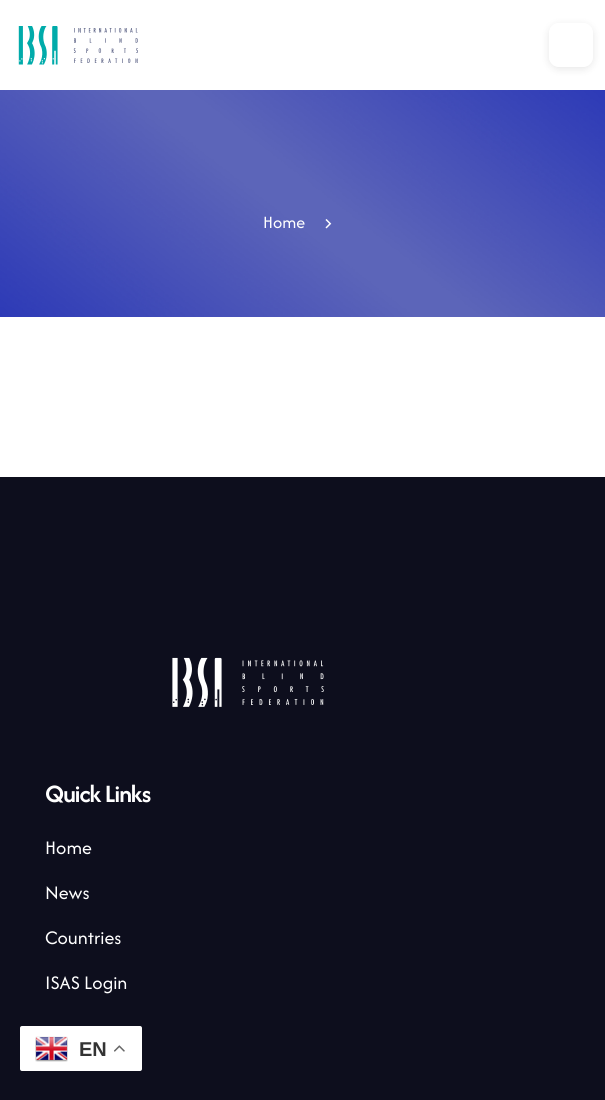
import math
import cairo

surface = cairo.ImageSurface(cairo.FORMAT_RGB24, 605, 1100)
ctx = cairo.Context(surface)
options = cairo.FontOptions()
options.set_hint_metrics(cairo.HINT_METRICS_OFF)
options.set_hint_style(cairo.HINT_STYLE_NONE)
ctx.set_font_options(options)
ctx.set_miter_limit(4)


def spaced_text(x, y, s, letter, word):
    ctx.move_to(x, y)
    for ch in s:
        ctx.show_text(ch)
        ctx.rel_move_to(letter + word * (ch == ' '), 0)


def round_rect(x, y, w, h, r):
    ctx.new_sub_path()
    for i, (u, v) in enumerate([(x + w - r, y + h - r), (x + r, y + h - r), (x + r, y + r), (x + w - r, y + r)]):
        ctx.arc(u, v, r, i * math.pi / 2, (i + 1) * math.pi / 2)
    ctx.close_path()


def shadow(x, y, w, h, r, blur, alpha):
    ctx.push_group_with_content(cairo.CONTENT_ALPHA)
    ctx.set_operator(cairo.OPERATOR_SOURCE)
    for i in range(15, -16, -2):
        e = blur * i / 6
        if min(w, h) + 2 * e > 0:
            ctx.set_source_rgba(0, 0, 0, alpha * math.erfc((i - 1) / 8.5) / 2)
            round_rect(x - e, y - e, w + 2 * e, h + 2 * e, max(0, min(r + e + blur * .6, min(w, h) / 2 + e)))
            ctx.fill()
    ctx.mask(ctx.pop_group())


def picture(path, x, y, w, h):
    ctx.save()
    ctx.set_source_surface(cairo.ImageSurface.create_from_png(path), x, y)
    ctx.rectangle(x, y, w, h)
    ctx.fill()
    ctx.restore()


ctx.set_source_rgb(1, 1, 1)
ctx.paint()
picture("img1.png", 18, 26, 120, 39)
ctx.save()
ctx.set_fill_rule(cairo.FILL_RULE_EVEN_ODD)
ctx.new_path()
ctx.move_to(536, 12)
ctx.line_to(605, 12)
ctx.line_to(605, 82)
ctx.line_to(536, 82)
ctx.close_path()
ctx.move_to(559, 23)
ctx.line_to(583, 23)
ctx.curve_to(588.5, 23, 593, 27.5, 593, 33)
ctx.line_to(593, 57)
ctx.curve_to(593, 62.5, 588.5, 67, 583, 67)
ctx.line_to(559, 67)
ctx.curve_to(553.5, 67, 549, 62.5, 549, 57)
ctx.line_to(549, 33)
ctx.curve_to(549, 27.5, 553.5, 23, 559, 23)
ctx.close_path()
ctx.clip()
ctx.set_source_rgb(0, 0, 0)
shadow(549, 25, 44, 44, 10, 4, 0.1)
ctx.restore()
picture("img2.png", 0, 90, 605, 227)
ctx.select_font_face("Afacad")
ctx.set_font_size(18)
ctx.set_source_rgb(1, 1, 1)
ctx.move_to(263, 228)
ctx.show_text("Home")
picture("img3.png", 325, 219, 7, 10)
ctx.set_source_rgb(0.051, 0.055, 0.114)
ctx.rectangle(0, 477, 605, 623)
ctx.fill()
picture("img4.png", 172, 657, 152, 50)
ctx.select_font_face("Afacad SemiBold")
ctx.set_font_size(26)
ctx.set_source_rgb(1, 1, 1)
spaced_text(45, 802, "Quick Links", -1, 0)
ctx.select_font_face("Afacad")
ctx.set_font_size(20)
ctx.move_to(45, 854)
ctx.show_text("Home")
ctx.move_to(45, 899)
ctx.show_text("News")
ctx.move_to(45, 944)
ctx.show_text("Countries")
ctx.move_to(45, 989)
ctx.show_text("ISAS Login")
round_rect(20, 1026, 122, 45, 2)
ctx.fill()
picture("img5.png", 35, 1036, 33, 26)
ctx.select_font_face("Liberation Sans", cairo.FONT_SLANT_NORMAL, cairo.FONT_WEIGHT_BOLD)
ctx.set_source_rgb(0.2, 0.2, 0.2)
ctx.move_to(79, 1056)
ctx.show_text("EN")
picture("img6.png", 114, 1045, 11, 7)
surface.write_to_png("page.png")
